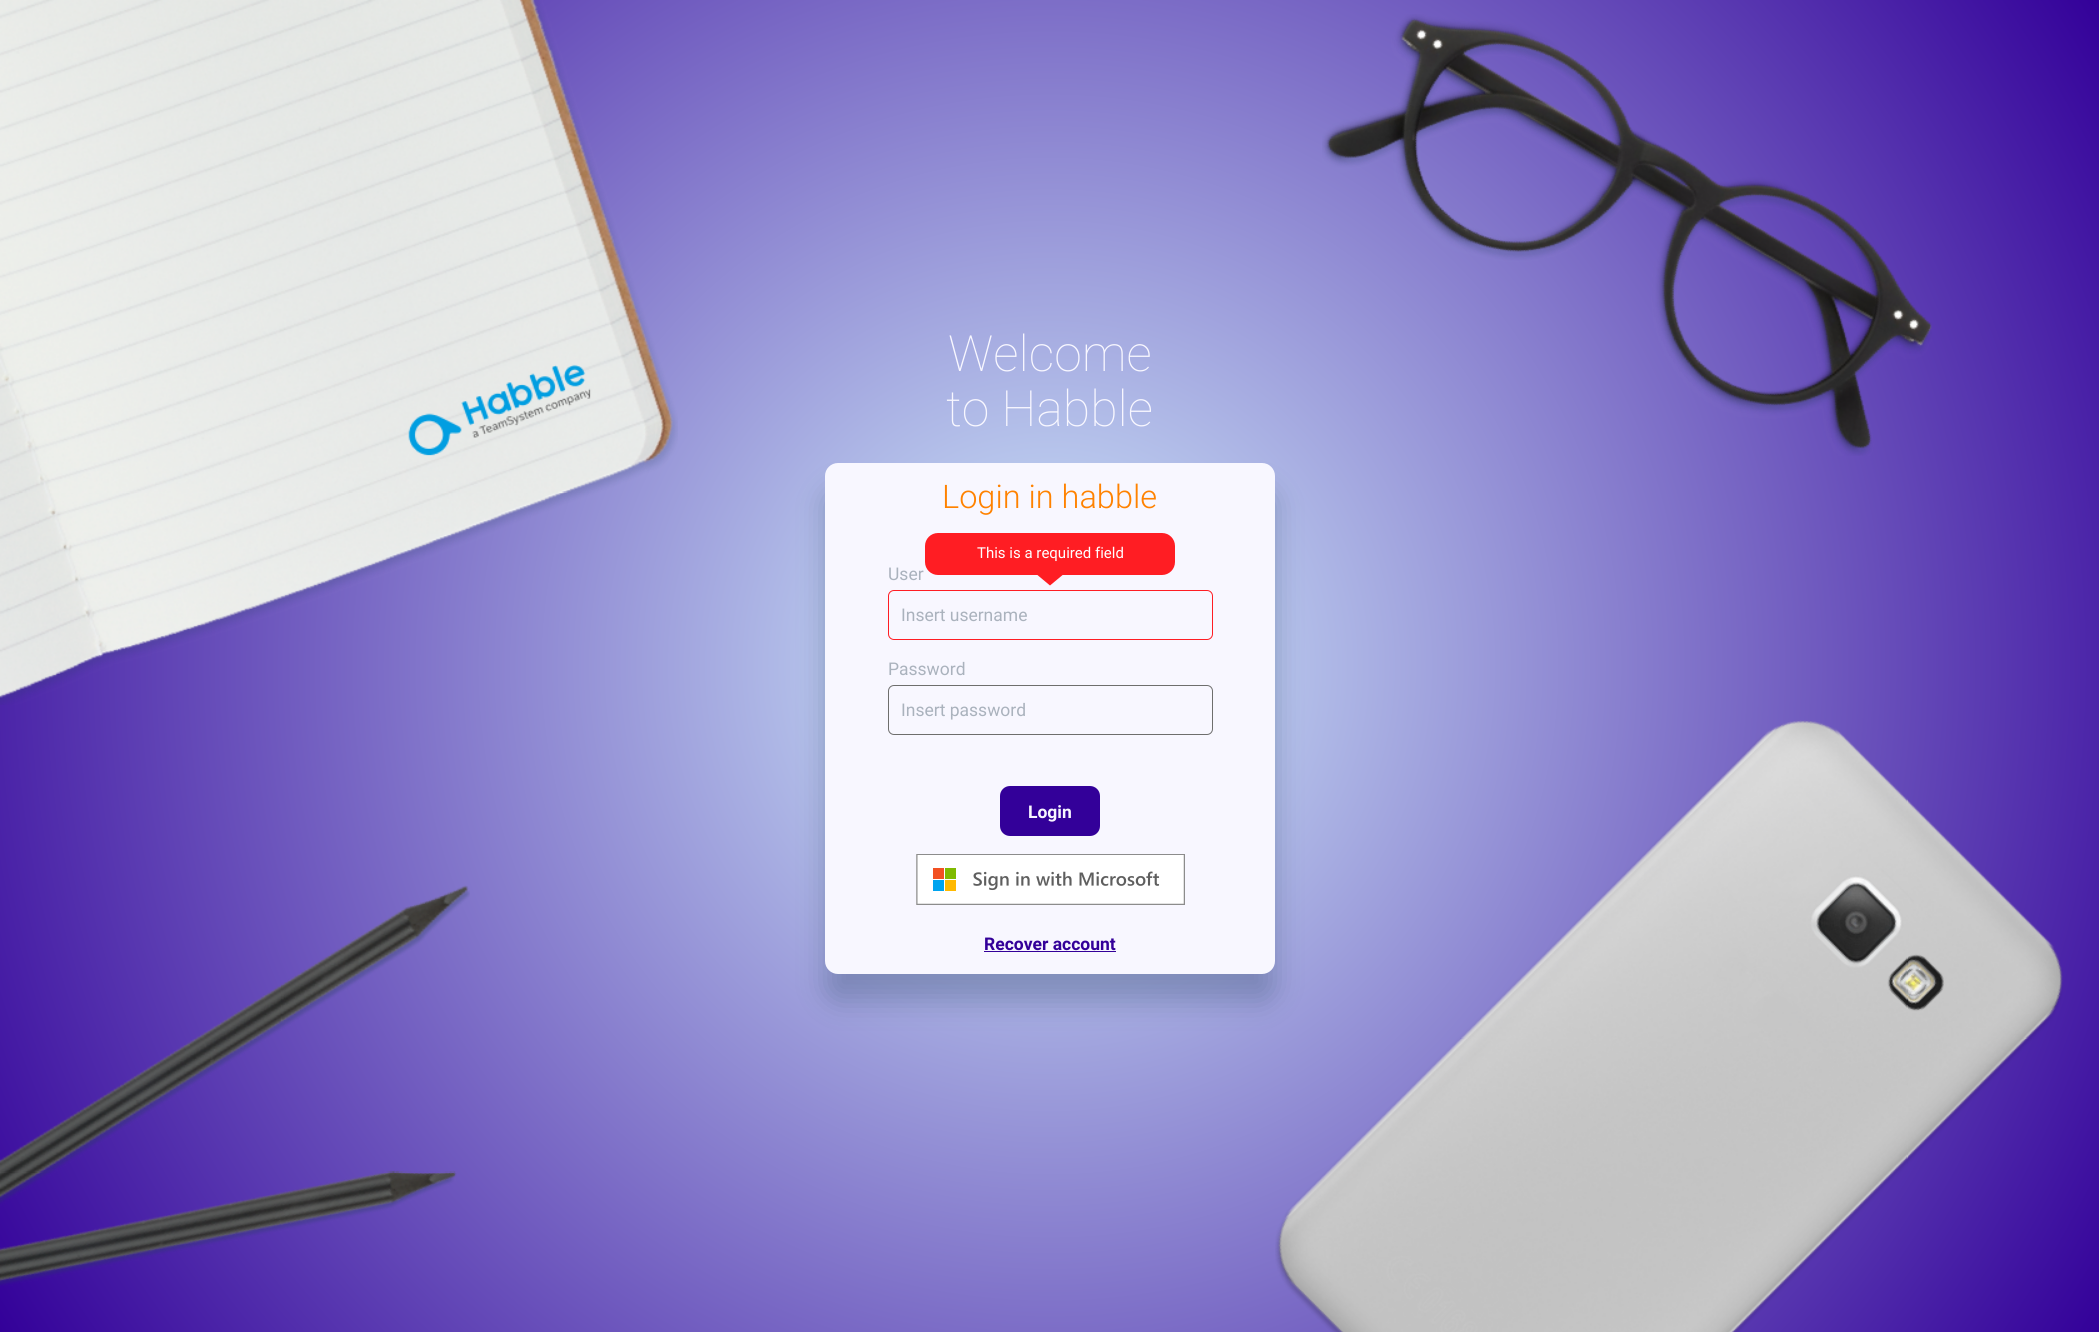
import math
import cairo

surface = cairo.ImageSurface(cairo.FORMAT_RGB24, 2099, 1332)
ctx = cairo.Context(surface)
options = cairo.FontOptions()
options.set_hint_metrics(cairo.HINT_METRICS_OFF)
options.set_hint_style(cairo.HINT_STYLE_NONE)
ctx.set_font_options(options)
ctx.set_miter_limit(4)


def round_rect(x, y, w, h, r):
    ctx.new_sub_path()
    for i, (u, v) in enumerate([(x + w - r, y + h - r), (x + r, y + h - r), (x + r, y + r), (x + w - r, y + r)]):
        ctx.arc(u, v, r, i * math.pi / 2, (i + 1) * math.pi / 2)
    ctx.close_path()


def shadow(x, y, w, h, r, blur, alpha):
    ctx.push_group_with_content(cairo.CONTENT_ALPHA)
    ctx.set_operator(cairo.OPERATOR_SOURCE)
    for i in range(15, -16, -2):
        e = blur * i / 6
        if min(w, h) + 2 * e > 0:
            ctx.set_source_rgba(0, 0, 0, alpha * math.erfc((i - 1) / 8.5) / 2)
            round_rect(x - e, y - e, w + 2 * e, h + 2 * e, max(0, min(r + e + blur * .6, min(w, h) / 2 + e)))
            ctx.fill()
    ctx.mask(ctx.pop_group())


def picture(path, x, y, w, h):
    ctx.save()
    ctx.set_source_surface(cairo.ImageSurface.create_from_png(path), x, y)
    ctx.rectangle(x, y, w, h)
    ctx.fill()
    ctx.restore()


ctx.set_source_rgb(1, 1, 1)
ctx.paint()
gradient = cairo.RadialGradient(1050, 666, 0, 1050, 666, 1244)
gradient.add_color_stop_rgba(0, 0.82, 0.925, 0.988, 1)
gradient.add_color_stop_rgba(1, 0.2, 0, 0.6, 1)
ctx.set_source(gradient)
ctx.rectangle(0, 0, 2099, 1332)
ctx.fill()
picture("img1.png", 0, 0, 678, 705)
picture("img2.png", 1322, 14, 610, 442)
ctx.select_font_face("Roboto Thin")
ctx.set_font_size(50)
ctx.set_source_rgb(0.969, 0.965, 1)
ctx.move_to(948, 371)
ctx.show_text("Welcome")
ctx.move_to(946, 426)
ctx.show_text("to Habble")
picture("img5.png", 1275, 720, 788, 612)
ctx.set_source_rgb(0.141, 0.251, 0.369)
shadow(825, 490, 450, 511, 13, 14, 0.3)
ctx.set_source_rgb(0.969, 0.965, 1)
round_rect(825, 463, 450, 511, 13)
ctx.fill()
ctx.select_font_face("Roboto Light")
ctx.set_font_size(32.5)
ctx.set_source_rgb(1, 0.51, 0)
ctx.move_to(942, 508)
ctx.show_text("Login in habble")
ctx.set_source_rgb(1, 0.114, 0.137)
round_rect(925, 533, 250, 42, 13)
ctx.fill()
ctx.select_font_face("Roboto")
ctx.set_font_size(15)
ctx.set_source_rgb(1, 1, 1)
ctx.move_to(977, 558)
ctx.show_text("This is a required field")
ctx.set_source_rgb(1, 0.114, 0.137)
ctx.new_path()
ctx.move_to(1035, 573)
ctx.line_to(1065, 573)
ctx.line_to(1050, 585.5)
ctx.close_path()
ctx.fill()
round_rect(888.5, 590.5, 324, 49, 5.5)
ctx.set_line_width(1)
ctx.stroke()
ctx.set_font_size(17.5)
ctx.set_source_rgb(0.667, 0.698, 0.741)
ctx.move_to(901, 621)
ctx.show_text("Insert username")
ctx.move_to(888, 580)
ctx.show_text("User")
ctx.move_to(888, 675)
ctx.show_text("Password")
round_rect(888.5, 685.5, 324, 49, 5.5)
ctx.set_source_rgb(0.431, 0.431, 0.427)
ctx.stroke()
ctx.set_source_rgb(0.667, 0.698, 0.741)
ctx.move_to(901, 716)
ctx.show_text("Insert password")
ctx.set_source_rgb(0.2, 0, 0.6)
round_rect(1000, 786, 100, 50, 10)
ctx.fill()
ctx.select_font_face("Roboto", cairo.FONT_SLANT_NORMAL, cairo.FONT_WEIGHT_BOLD)
ctx.set_source_rgb(0.969, 0.965, 1)
ctx.move_to(1028, 818)
ctx.show_text("Login")
picture("img3.png", 916, 854, 269, 51)
ctx.set_source_rgb(0.2, 0, 0.6)
ctx.move_to(984, 950)
ctx.show_text("Recover account")
ctx.rectangle(984, 951, 132, 1)
ctx.fill()
picture("img4.png", 0, 885, 470, 401)
surface.write_to_png("page.png")
